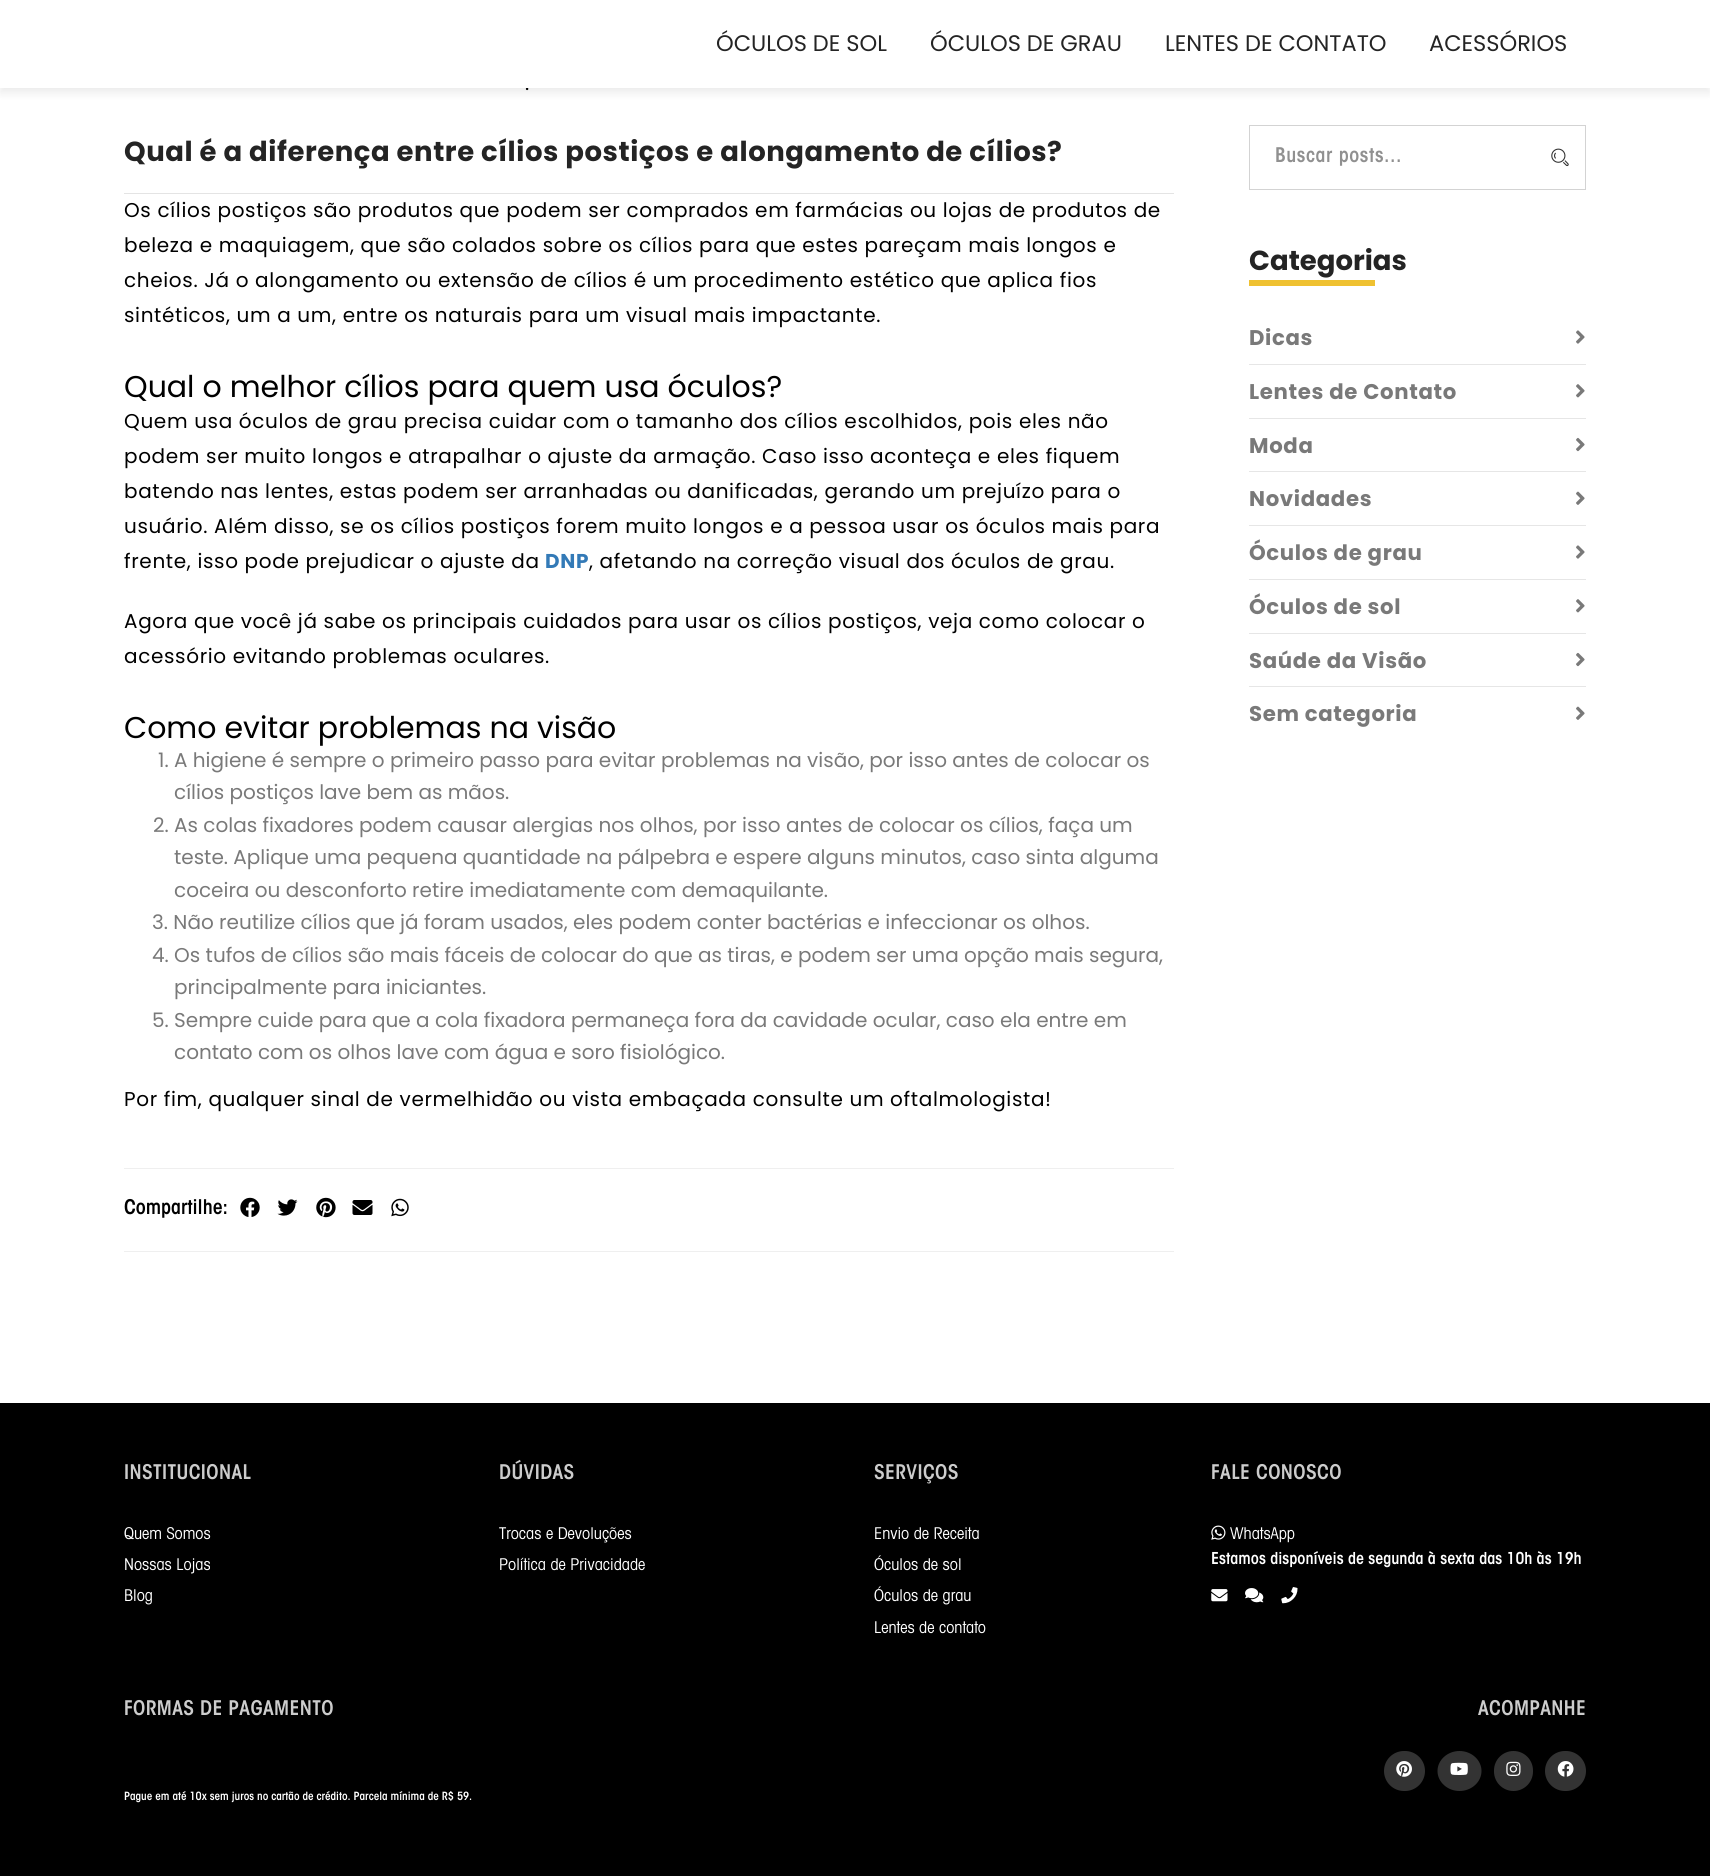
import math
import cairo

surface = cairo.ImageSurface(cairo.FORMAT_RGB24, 1710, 1876)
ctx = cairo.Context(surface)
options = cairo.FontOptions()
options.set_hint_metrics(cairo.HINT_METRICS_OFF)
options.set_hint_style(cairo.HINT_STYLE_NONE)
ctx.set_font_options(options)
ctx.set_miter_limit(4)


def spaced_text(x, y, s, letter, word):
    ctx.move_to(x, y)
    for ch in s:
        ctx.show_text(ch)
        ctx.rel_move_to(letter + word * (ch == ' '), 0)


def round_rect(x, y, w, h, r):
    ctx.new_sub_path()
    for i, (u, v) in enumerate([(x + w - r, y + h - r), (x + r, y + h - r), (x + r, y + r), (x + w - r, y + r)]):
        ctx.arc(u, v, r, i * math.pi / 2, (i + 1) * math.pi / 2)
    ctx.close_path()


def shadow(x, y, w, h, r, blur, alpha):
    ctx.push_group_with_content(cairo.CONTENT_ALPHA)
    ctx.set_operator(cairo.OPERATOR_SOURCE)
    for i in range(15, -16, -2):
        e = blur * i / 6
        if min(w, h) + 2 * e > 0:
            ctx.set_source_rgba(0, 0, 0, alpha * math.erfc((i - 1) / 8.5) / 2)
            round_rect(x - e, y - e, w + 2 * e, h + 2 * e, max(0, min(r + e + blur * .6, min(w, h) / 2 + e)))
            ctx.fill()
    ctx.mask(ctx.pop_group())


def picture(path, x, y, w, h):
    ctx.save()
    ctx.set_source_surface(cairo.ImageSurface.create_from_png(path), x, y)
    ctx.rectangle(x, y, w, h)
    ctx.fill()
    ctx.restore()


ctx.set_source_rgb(1, 1, 1)
ctx.paint()
ctx.set_source_rgb(0, 0, 0)
shadow(0, 5, 1710, 88, 0, 4.5, 0.08)
ctx.select_font_face("Poppins")
ctx.set_font_size(20)
ctx.set_source_rgb(0, 0, 0)
spaced_text(525, 90, ".", 0.65, 0)
ctx.set_source_rgb(1, 1, 1)
ctx.rectangle(0, 0, 1710, 88)
ctx.fill()
ctx.set_font_size(22.5)
ctx.set_source_rgb(0.141, 0.141, 0.141)
ctx.move_to(716, 51)
ctx.show_text("ÓCULOS DE SOL")
ctx.move_to(930, 51)
ctx.show_text("ÓCULOS DE GRAU")
ctx.move_to(1165, 51)
ctx.show_text("LENTES DE CONTATO")
ctx.move_to(1429, 51)
ctx.show_text("ACESSÓRIOS")
ctx.set_source_rgb(0.894, 0.894, 0.894)
ctx.rectangle(124, 193, 1050, 1)
ctx.fill()
ctx.select_font_face("Poppins", cairo.FONT_SLANT_NORMAL, cairo.FONT_WEIGHT_BOLD)
ctx.set_font_size(27.5)
ctx.set_source_rgb(0.141, 0.141, 0.141)
spaced_text(124, 161, "Qual é a diferença entre cílios postiços e alongamento de cílios?", 0.55, 0)
ctx.select_font_face("Poppins")
ctx.set_font_size(20)
ctx.set_source_rgb(0, 0, 0)
spaced_text(124, 217, "Os cílios postiços são produtos que podem ser comprados em farmácias ou lojas de produtos de", 0.65, 0)
spaced_text(124, 252, "beleza e maquiagem, que são colados sobre os cílios para que estes pareçam mais longos e", 0.65, 0)
spaced_text(124, 287, "cheios. Já o alongamento ou extensão de cílios é um procedimento estético que aplica fios", 0.65, 0)
spaced_text(124, 322, "sintéticos, um a um, entre os naturais para um visual mais impactante.", 0.65, 0)
ctx.set_font_size(30)
ctx.move_to(124, 397)
ctx.show_text("Qual o melhor cílios para quem usa óculos?")
ctx.set_font_size(20)
spaced_text(124, 428, "Quem usa óculos de grau precisa cuidar com o tamanho dos cílios escolhidos, pois eles não", 0.65, 0)
spaced_text(124, 463, "podem ser muito longos e atrapalhar o ajuste da armação. Caso isso aconteça e eles fiquem", 0.65, 0)
spaced_text(124, 498, "batendo nas lentes, estas podem ser arranhadas ou danificadas, gerando um prejuízo para o", 0.65, 0)
spaced_text(124, 533, "usuário. Além disso, se os cílios postiços forem muito longos e a pessoa usar os óculos mais para", 0.65, 0)
spaced_text(124, 568, "frente, isso pode prejudicar o ajuste da", 0.65, 0)
ctx.select_font_face("Poppins", cairo.FONT_SLANT_NORMAL, cairo.FONT_WEIGHT_BOLD)
ctx.set_source_rgb(0.2, 0.478, 0.718)
spaced_text(545, 568, "DNP", 0.65, 0)
ctx.select_font_face("Poppins")
ctx.set_source_rgb(0, 0, 0)
spaced_text(589, 568, ", afetando na correção visual dos óculos de grau.", 0.65, 0)
spaced_text(124, 628, "Agora que você já sabe os principais cuidados para usar os cílios postiços, veja como colocar o", 0.65, 0)
spaced_text(124, 663, "acessório evitando problemas oculares.", 0.65, 0)
ctx.set_font_size(30)
ctx.move_to(124, 738)
ctx.show_text("Como evitar problemas na visão")
ctx.set_font_size(20)
ctx.set_source_rgb(0.475, 0.475, 0.475)
ctx.move_to(158, 767)
ctx.show_text("1. A higiene é sempre o primeiro passo para evitar problemas na visão, por isso antes de colocar os")
ctx.move_to(174, 799)
ctx.show_text("cílios postiços lave bem as mãos.")
ctx.move_to(153, 832)
ctx.show_text("2. As colas fixadores podem causar alergias nos olhos, por isso antes de colocar os cílios, faça um")
ctx.move_to(174, 864)
ctx.show_text("teste. Aplique uma pequena quantidade na pálpebra e espere alguns minutos, caso sinta alguma")
ctx.move_to(174, 897)
ctx.show_text("coceira ou desconforto retire imediatamente com demaquilante.")
ctx.move_to(152, 929)
ctx.show_text("3. Não reutilize cílios que já foram usados, eles podem conter bactérias e infeccionar os olhos.")
ctx.move_to(152, 962)
ctx.show_text("4. Os tufos de cílios são mais fáceis de colocar do que as tiras, e podem ser uma opção mais segura,")
ctx.move_to(174, 994)
ctx.show_text("principalmente para iniciantes.")
ctx.move_to(152, 1027)
ctx.show_text("5. Sempre cuide para que a cola fixadora permaneça fora da cavidade ocular, caso ela entre em")
ctx.move_to(174, 1059)
ctx.show_text("contato com os olhos lave com água e soro fisiológico.")
ctx.set_source_rgb(0, 0, 0)
spaced_text(124, 1106, "Por fim, qualquer sinal de vermelhidão ou vista embaçada consulte um oftalmologista!", 0.65, 0)
ctx.set_source_rgb(0.937, 0.937, 0.937)
ctx.rectangle(124, 1168, 1050, 1)
ctx.fill()
ctx.rectangle(124, 1251, 1050, 1)
ctx.fill()
ctx.select_font_face("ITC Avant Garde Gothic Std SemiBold")
ctx.set_source_rgb(0, 0, 0)
ctx.move_to(124, 1214)
ctx.show_text("Compartilhe:")
picture("img1.png", 240, 1197, 20, 20)
picture("img2.png", 277, 1199, 21, 17)
picture("img3.png", 316, 1197, 20, 21)
picture("img4.png", 352, 1200, 21, 15)
picture("img5.png", 391, 1198, 18, 19)
ctx.rectangle(1249.5, 125.5, 336, 64)
ctx.set_source_rgb(0.827, 0.827, 0.827)
ctx.set_line_width(1)
ctx.stroke()
ctx.set_source_rgb(0.565, 0.565, 0.565)
spaced_text(1275, 162, "Buscar posts...", 0.6, 0)
picture("img6.png", 1551, 148, 18, 19)
ctx.select_font_face("Poppins", cairo.FONT_SLANT_NORMAL, cairo.FONT_WEIGHT_BOLD)
ctx.set_font_size(27.5)
ctx.set_source_rgb(0.141, 0.141, 0.141)
ctx.move_to(1249, 270)
ctx.show_text("Categorias")
ctx.set_source_rgb(0.937, 0.757, 0.192)
ctx.rectangle(1249, 280, 126, 6)
ctx.fill()
ctx.set_source_rgb(0.902, 0.902, 0.902)
ctx.rectangle(1249, 364, 337, 1)
ctx.fill()
ctx.set_font_size(21.25)
ctx.set_source_rgb(0.475, 0.475, 0.475)
spaced_text(1249, 345, "Dicas", 0.65, 0)
picture("img7.png", 1576, 330, 9, 14)
ctx.set_source_rgb(0.902, 0.902, 0.902)
ctx.rectangle(1249, 418, 337, 1)
ctx.fill()
ctx.set_source_rgb(0.475, 0.475, 0.475)
spaced_text(1249, 399, "Lentes de Contato", 0.65, 0)
picture("img8.png", 1576, 384, 9, 14)
ctx.set_source_rgb(0.902, 0.902, 0.902)
ctx.rectangle(1249, 471, 337, 1)
ctx.fill()
ctx.set_source_rgb(0.475, 0.475, 0.475)
spaced_text(1249, 453, "Moda", 0.65, 0)
picture("img9.png", 1576, 437, 9, 15)
ctx.set_source_rgb(0.902, 0.902, 0.902)
ctx.rectangle(1249, 525, 337, 1)
ctx.fill()
ctx.set_source_rgb(0.475, 0.475, 0.475)
spaced_text(1249, 506, "Novidades", 0.65, 0)
picture("img10.png", 1576, 491, 9, 14)
ctx.set_source_rgb(0.902, 0.902, 0.902)
ctx.rectangle(1249, 579, 337, 1)
ctx.fill()
ctx.set_source_rgb(0.475, 0.475, 0.475)
spaced_text(1249, 560, "Óculos de grau", 0.65, 0)
picture("img7.png", 1576, 545, 9, 14)
ctx.set_source_rgb(0.902, 0.902, 0.902)
ctx.rectangle(1249, 633, 337, 1)
ctx.fill()
ctx.set_source_rgb(0.475, 0.475, 0.475)
spaced_text(1249, 614, "Óculos de sol", 0.65, 0)
picture("img8.png", 1576, 599, 9, 14)
ctx.set_source_rgb(0.902, 0.902, 0.902)
ctx.rectangle(1249, 686, 337, 1)
ctx.fill()
ctx.set_source_rgb(0.475, 0.475, 0.475)
spaced_text(1249, 668, "Saúde da Visão", 0.65, 0)
picture("img9.png", 1576, 652, 9, 15)
spaced_text(1249, 721, "Sem categoria", 0.65, 0)
picture("img10.png", 1576, 706, 9, 14)
ctx.set_source_rgb(0, 0, 0)
ctx.rectangle(0, 1403, 1710, 473)
ctx.fill()
ctx.select_font_face("ITC Avant Garde Gothic Std SemiBold")
ctx.set_font_size(20)
ctx.set_source_rgb(0.8, 0.8, 0.8)
spaced_text(124, 1479, "INSTITUCIONAL", 0.4, 0)
ctx.select_font_face("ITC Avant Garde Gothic")
ctx.set_font_size(16.25)
ctx.set_source_rgb(1, 1, 1)
ctx.move_to(124, 1539)
ctx.show_text("Quem Somos")
ctx.move_to(124, 1570)
ctx.show_text("Nossas Lojas")
ctx.move_to(124, 1601)
ctx.show_text("Blog")
ctx.select_font_face("ITC Avant Garde Gothic Std SemiBold")
ctx.set_font_size(20)
ctx.set_source_rgb(0.8, 0.8, 0.8)
spaced_text(499, 1479, "DÚVIDAS", 0.4, 0)
ctx.select_font_face("ITC Avant Garde Gothic")
ctx.set_font_size(16.25)
ctx.set_source_rgb(1, 1, 1)
ctx.move_to(499, 1539)
ctx.show_text("Trocas e Devoluções")
ctx.move_to(499, 1570)
ctx.show_text("Política de Privacidade")
ctx.select_font_face("ITC Avant Garde Gothic Std SemiBold")
ctx.set_font_size(20)
ctx.set_source_rgb(0.8, 0.8, 0.8)
spaced_text(874, 1479, "SERVIÇOS", 0.4, 0)
ctx.select_font_face("ITC Avant Garde Gothic")
ctx.set_font_size(16.25)
ctx.set_source_rgb(1, 1, 1)
ctx.move_to(874, 1539)
ctx.show_text("Envio de Receita")
ctx.move_to(874, 1570)
ctx.show_text("Óculos de sol")
ctx.move_to(874, 1601)
ctx.show_text("Óculos de grau")
ctx.move_to(874, 1633)
ctx.show_text("Lentes de contato")
ctx.select_font_face("ITC Avant Garde Gothic Std SemiBold")
ctx.set_font_size(20)
ctx.set_source_rgb(0.8, 0.8, 0.8)
spaced_text(1211, 1479, "FALE CONOSCO", 0.4, 0)
picture("img11.png", 1211, 1525, 15, 15)
ctx.select_font_face("ITC Avant Garde Gothic")
ctx.set_font_size(16.25)
ctx.set_source_rgb(1, 1, 1)
ctx.move_to(1230, 1539)
ctx.show_text("WhatsApp")
ctx.select_font_face("ITC Avant Garde Gothic Std SemiBold")
ctx.move_to(1211, 1564)
ctx.show_text("Estamos disponíveis de segunda à sexta das 10h às 19h")
picture("img12.png", 1211, 1589, 17, 13)
picture("img13.png", 1245, 1588, 19, 15)
picture("img14.png", 1281, 1587, 17, 17)
ctx.set_font_size(20)
ctx.set_source_rgb(0.8, 0.8, 0.8)
spaced_text(124, 1715, "FORMAS DE PAGAMENTO", 0.4, 0)
ctx.set_font_size(11.25)
ctx.set_source_rgb(1, 1, 1)
ctx.move_to(124, 1800)
ctx.show_text("Pague em até 10x sem juros no cartão de crédito. Parcela mínima de R$ 59.")
ctx.set_font_size(20)
ctx.set_source_rgb(0.8, 0.8, 0.8)
spaced_text(1478, 1715, "ACOMPANHE", 0.4, 0)
ctx.set_source_rgb(0.2, 0.2, 0.2)
round_rect(1384, 1751, 41, 40, 20)
ctx.fill()
picture("img15.png", 1396, 1761, 16, 16)
ctx.new_path()
ctx.move_to(1459.5, 1751)
ctx.curve_to(1471.5, 1751, 1481.5, 1760, 1481.5, 1771)
ctx.curve_to(1481.5, 1782, 1471.5, 1791, 1459.5, 1791)
ctx.curve_to(1447.5, 1791, 1437.5, 1782, 1437.5, 1771)
ctx.curve_to(1437.5, 1760, 1447.5, 1751, 1459.5, 1751)
ctx.close_path()
ctx.fill()
picture("img16.png", 1450, 1762, 18, 13)
round_rect(1494, 1751, 39, 40, 19.5)
ctx.fill()
picture("img17.png", 1506, 1761, 15, 15)
round_rect(1545, 1751, 41, 40, 20)
ctx.fill()
picture("img18.png", 1557, 1761, 17, 16)
surface.write_to_png("page.png")
